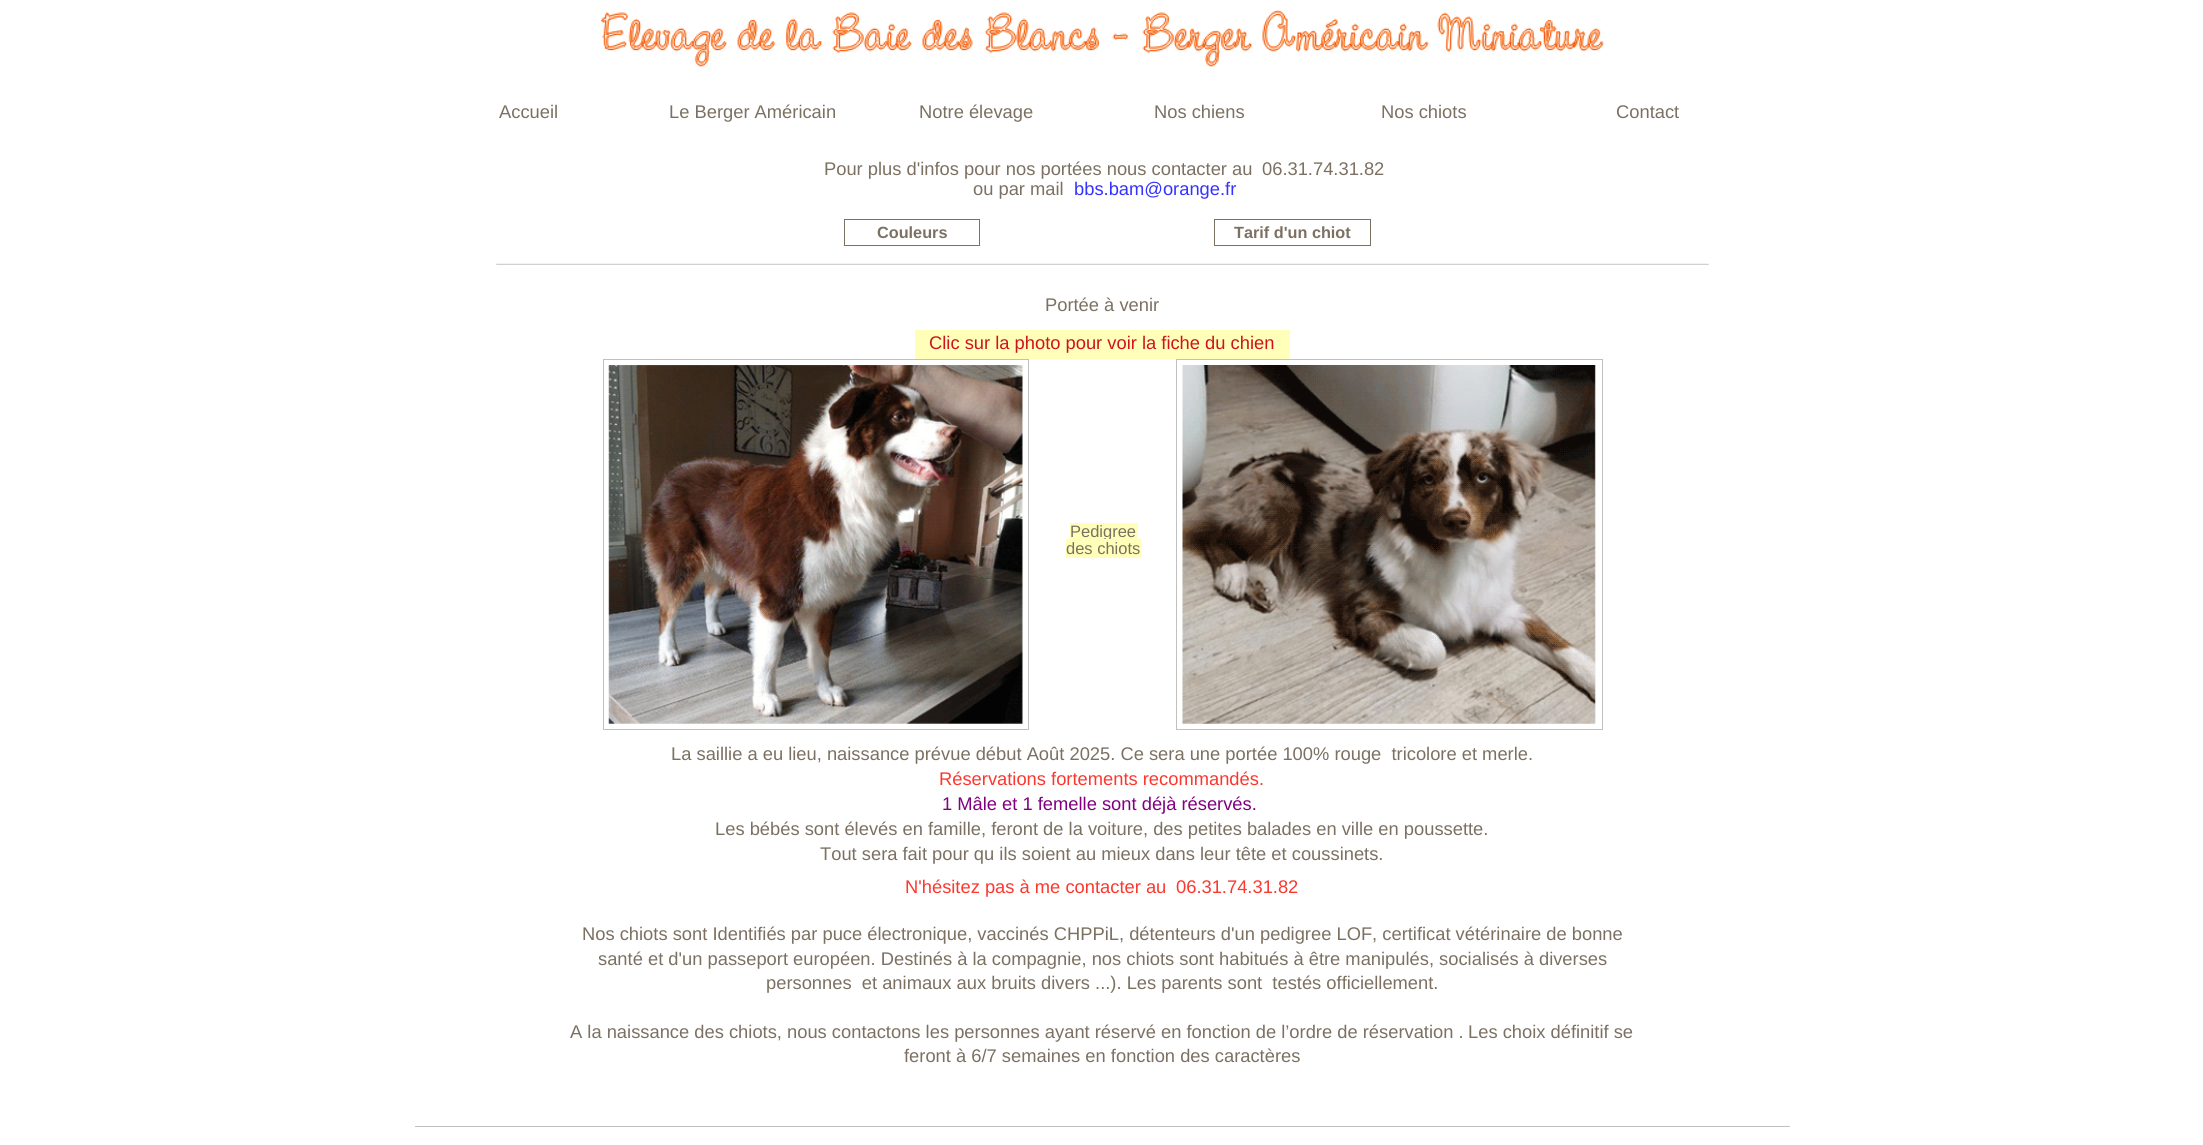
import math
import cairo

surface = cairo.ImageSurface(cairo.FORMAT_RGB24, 2203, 1145)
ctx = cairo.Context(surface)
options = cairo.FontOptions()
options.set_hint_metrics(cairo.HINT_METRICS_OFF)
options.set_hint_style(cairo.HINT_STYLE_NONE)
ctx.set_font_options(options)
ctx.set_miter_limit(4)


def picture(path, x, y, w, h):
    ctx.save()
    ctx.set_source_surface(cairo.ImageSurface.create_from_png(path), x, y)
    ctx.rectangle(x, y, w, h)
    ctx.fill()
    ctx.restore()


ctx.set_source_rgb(1, 1, 1)
ctx.paint()
picture("img1.png", 601, 10, 1003, 57)
ctx.select_font_face("Liberation Sans")
ctx.set_font_size(18.33)
ctx.set_source_rgb(0.482, 0.439, 0.38)
ctx.move_to(499, 118)
ctx.show_text("Accueil")
ctx.move_to(669, 118)
ctx.show_text("Le Berger Américain")
ctx.move_to(919, 118)
ctx.show_text("Notre élevage")
ctx.move_to(1154, 118)
ctx.show_text("Nos chiens")
ctx.move_to(1381, 118)
ctx.show_text("Nos chiots")
ctx.move_to(1616, 118)
ctx.show_text("Contact")
ctx.move_to(824, 175)
ctx.show_text("Pour plus d'infos pour nos portées nous contacter au")
ctx.move_to(1262, 175)
ctx.show_text("06.31.74.31.82")
ctx.move_to(973, 195)
ctx.show_text("ou par mail")
ctx.set_source_rgb(0.2, 0.2, 1)
ctx.move_to(1074, 195)
ctx.show_text("bbs.bam@orange.fr")
ctx.rectangle(844.5, 219.5, 135, 26)
ctx.set_source_rgb(0.482, 0.439, 0.38)
ctx.set_line_width(1)
ctx.stroke()
ctx.select_font_face("Liberation Sans", cairo.FONT_SLANT_NORMAL, cairo.FONT_WEIGHT_BOLD)
ctx.set_font_size(16.25)
ctx.move_to(877, 238)
ctx.show_text("Couleurs")
ctx.rectangle(1214.5, 219.5, 156, 26)
ctx.stroke()
ctx.move_to(1234, 238)
ctx.show_text("Tarif d'un chiot")
picture("img2.png", 496, 263, 1213, 2)
ctx.select_font_face("Liberation Sans")
ctx.set_font_size(18.33)
ctx.move_to(1045, 311)
ctx.show_text("Portée à venir")
ctx.set_source_rgb(1, 1, 0.725)
ctx.rectangle(915, 330, 375, 29)
ctx.fill()
ctx.set_source_rgb(0.816, 0.071, 0.125)
ctx.move_to(929, 349)
ctx.show_text("Clic sur la photo pour voir la fiche du chien")
ctx.rectangle(603.5, 359.5, 425, 370)
ctx.set_source_rgb(0.753, 0.753, 0.753)
ctx.stroke()
picture("img3.png", 608, 365, 415, 359)
ctx.set_source_rgb(1, 1, 0.725)
ctx.rectangle(1070, 523, 68, 16)
ctx.fill()
ctx.set_font_size(16.5)
ctx.set_source_rgb(0.482, 0.439, 0.38)
ctx.move_to(1070, 537)
ctx.show_text("Pedigree")
ctx.set_source_rgb(1, 1, 0.725)
ctx.rectangle(1066, 539, 75, 19)
ctx.fill()
ctx.set_source_rgb(0.482, 0.439, 0.38)
ctx.move_to(1066, 554)
ctx.show_text("des chiots")
ctx.rectangle(1176.5, 359.5, 426, 370)
ctx.set_source_rgb(0.753, 0.753, 0.753)
ctx.stroke()
picture("img4.png", 1182, 365, 414, 359)
ctx.set_font_size(18.33)
ctx.set_source_rgb(0.482, 0.439, 0.38)
ctx.move_to(671, 760)
ctx.show_text("La saillie a eu lieu, naissance prévue début Août 2025. Ce sera une portée 100% rouge  tricolore et merle.")
ctx.set_source_rgb(0.988, 0.216, 0.18)
ctx.move_to(939, 785)
ctx.show_text("Réservations fortements recommandés.")
ctx.set_source_rgb(0.502, 0, 0.502)
ctx.move_to(942, 810)
ctx.show_text("1 Mâle et 1 femelle sont déjà réservés.")
ctx.set_source_rgb(0.482, 0.439, 0.38)
ctx.move_to(715, 835)
ctx.show_text("Les bébés sont élevés en famille, feront de la voiture, des petites balades en ville en poussette.")
ctx.move_to(820, 860)
ctx.show_text("Tout sera fait pour qu ils soient au mieux dans leur tête et coussinets.")
ctx.set_source_rgb(0.988, 0.216, 0.18)
ctx.move_to(905, 893)
ctx.show_text("N'hésitez pas à me contacter au")
ctx.move_to(1176, 893)
ctx.show_text("06.31.74.31.82")
ctx.set_source_rgb(0.482, 0.439, 0.38)
ctx.move_to(582, 940)
ctx.show_text("Nos chiots sont Identifiés par puce électronique, vaccinés CHPPiL, détenteurs d'un pedigree LOF, certificat vétérinaire de bonne")
ctx.move_to(598, 965)
ctx.show_text("santé et d'un passeport européen. Destinés à la compagnie, nos chiots sont habitués à être manipulés, socialisés à diverses")
ctx.move_to(766, 989)
ctx.show_text("personnes  et animaux aux bruits divers ...). Les parents sont  testés officiellement.")
ctx.move_to(570, 1038)
ctx.show_text("A la naissance des chiots, nous contactons les personnes ayant réservé en fonction de l’ordre de réservation .")
ctx.move_to(1468, 1038)
ctx.show_text("Les choix définitif se")
ctx.move_to(904, 1062)
ctx.show_text("feront à 6/7 semaines en fonction des caractères")
ctx.set_source_rgb(0.753, 0.753, 0.753)
ctx.rectangle(415, 1126, 1375, 1)
ctx.fill()
surface.write_to_png("page.png")
